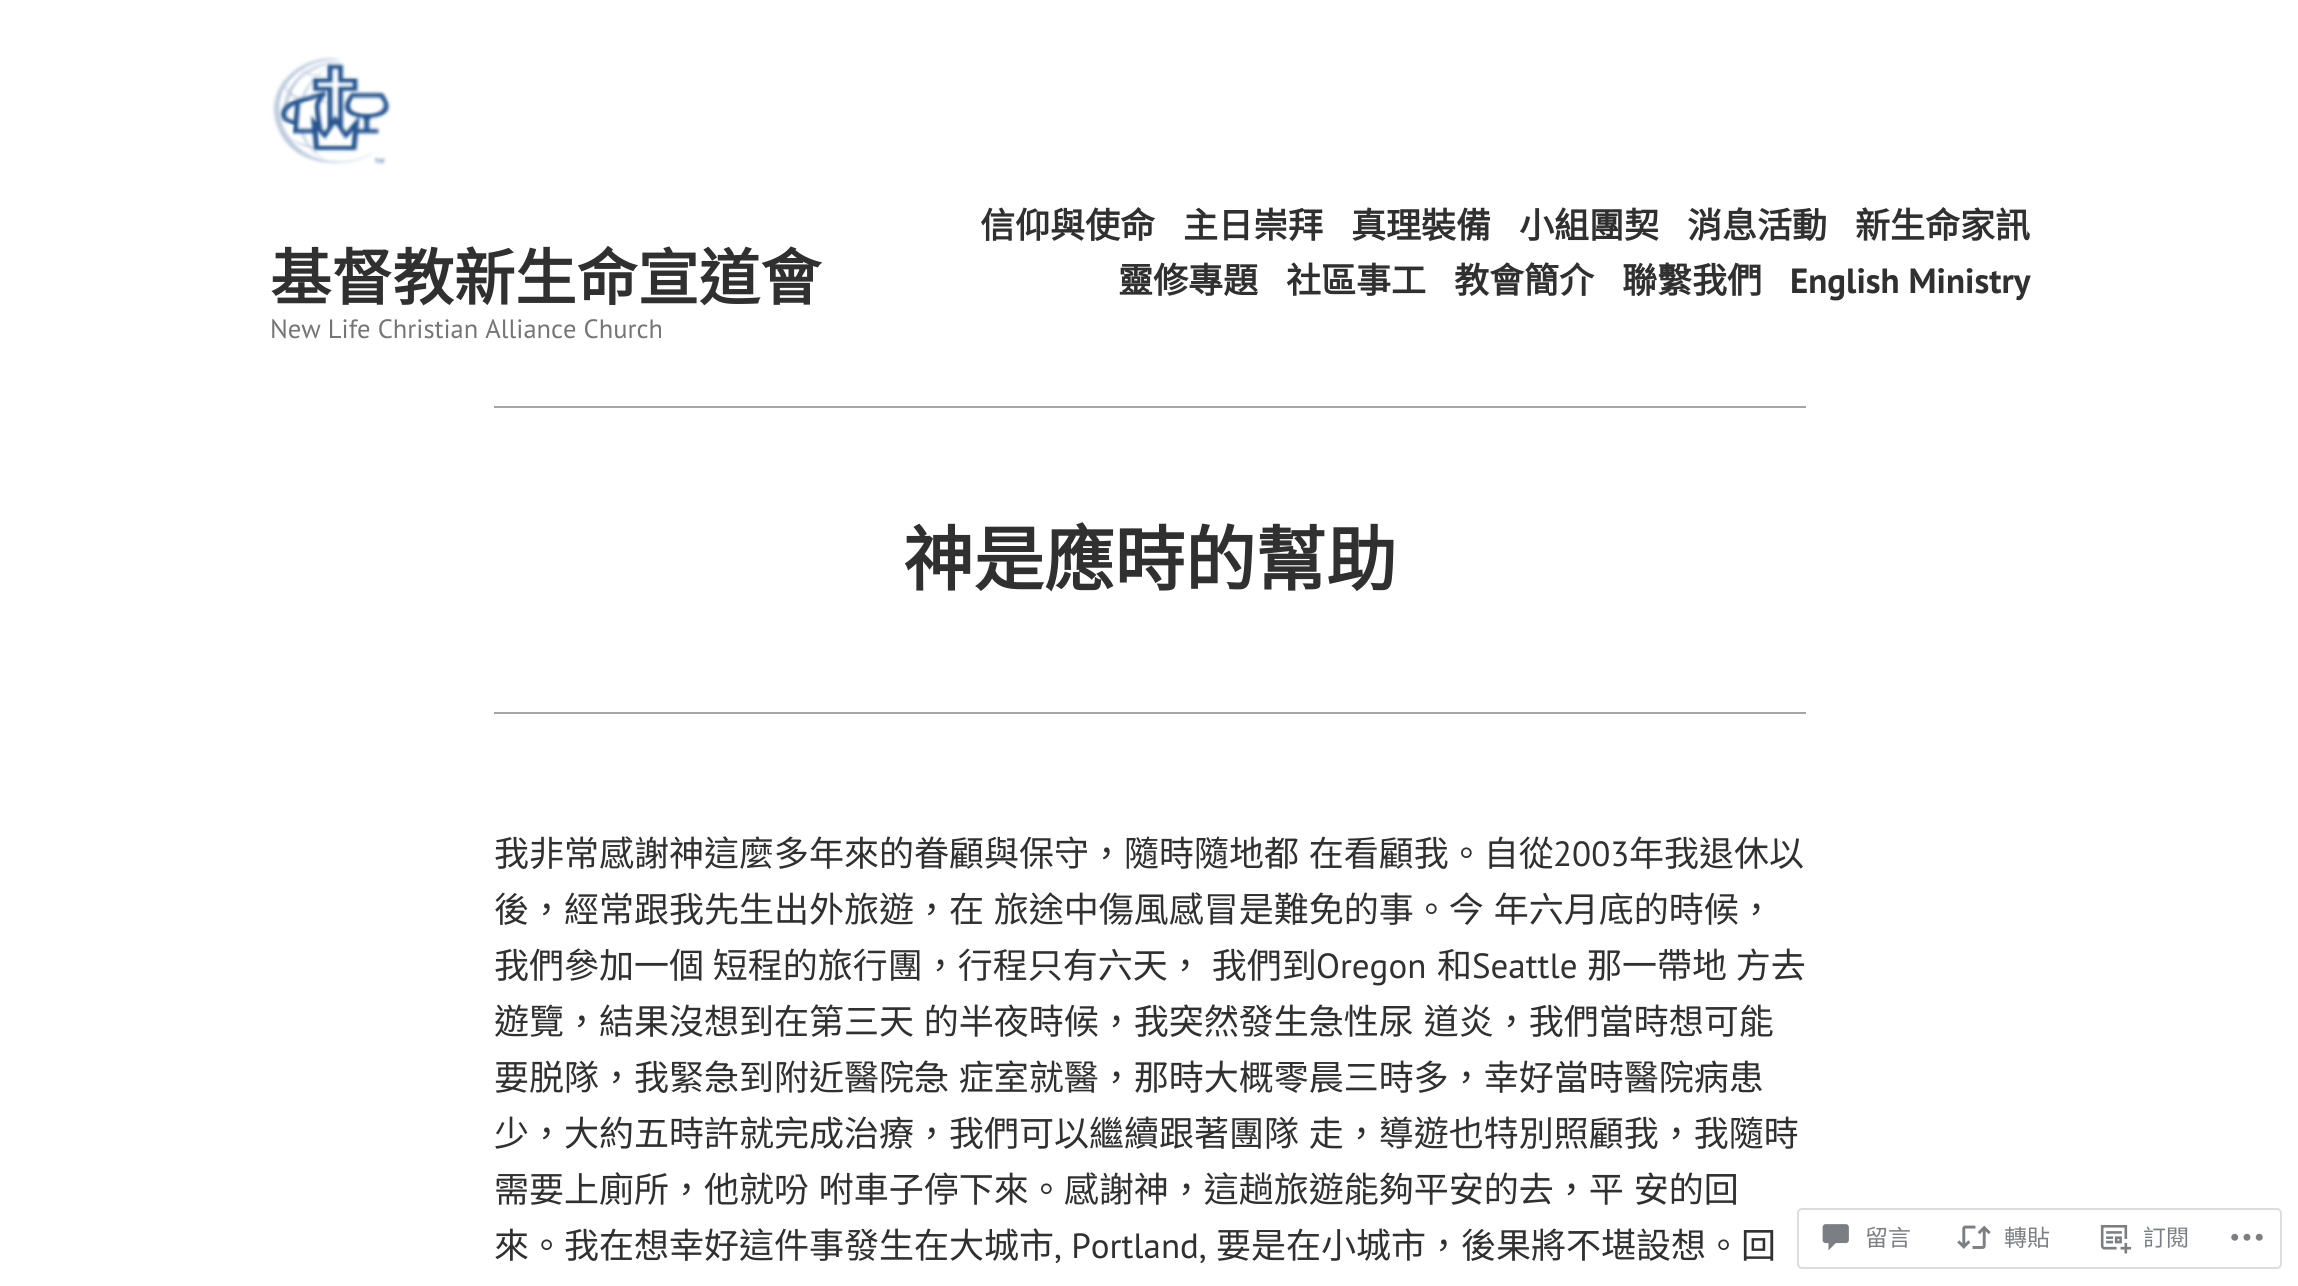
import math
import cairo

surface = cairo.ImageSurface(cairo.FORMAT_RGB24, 2298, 1286)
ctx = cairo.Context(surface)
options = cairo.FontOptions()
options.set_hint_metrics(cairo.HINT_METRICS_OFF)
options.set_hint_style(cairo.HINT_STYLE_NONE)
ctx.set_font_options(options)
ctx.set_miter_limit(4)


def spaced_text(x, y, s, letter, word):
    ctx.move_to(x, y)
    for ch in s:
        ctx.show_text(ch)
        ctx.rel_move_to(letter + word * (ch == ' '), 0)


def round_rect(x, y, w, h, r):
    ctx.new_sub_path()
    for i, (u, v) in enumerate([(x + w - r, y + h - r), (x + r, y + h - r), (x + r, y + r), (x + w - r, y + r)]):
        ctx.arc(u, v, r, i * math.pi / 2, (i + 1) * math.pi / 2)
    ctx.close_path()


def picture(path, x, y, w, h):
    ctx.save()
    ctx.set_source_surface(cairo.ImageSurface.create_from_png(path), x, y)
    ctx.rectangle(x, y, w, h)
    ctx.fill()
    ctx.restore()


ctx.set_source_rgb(1, 1, 1)
ctx.paint()
picture("img1.png", 271, 56, 121, 110)
ctx.select_font_face("Noto Sans CJK TC", cairo.FONT_SLANT_NORMAL, cairo.FONT_WEIGHT_BOLD)
ctx.set_font_size(61.25)
ctx.set_source_rgb(0.188, 0.188, 0.188)
ctx.move_to(270, 300)
ctx.show_text("基督教新生命宣道會")
ctx.set_font_size(35)
ctx.move_to(980, 238)
ctx.show_text("信仰與使命")
ctx.move_to(1183, 238)
ctx.show_text("主日崇拜")
ctx.move_to(1351, 238)
ctx.show_text("真理裝備")
ctx.move_to(1519, 238)
ctx.show_text("小組團契")
ctx.move_to(1687, 238)
ctx.show_text("消息活動")
ctx.move_to(1855, 238)
ctx.show_text("新生命家訊")
ctx.move_to(1118, 293)
ctx.show_text("靈修專題")
ctx.move_to(1286, 293)
ctx.show_text("社區事工")
ctx.move_to(1454, 293)
ctx.show_text("教會簡介")
ctx.move_to(1622, 293)
ctx.show_text("聯繫我們")
ctx.select_font_face("PT Sans", cairo.FONT_SLANT_NORMAL, cairo.FONT_WEIGHT_BOLD)
ctx.move_to(1790, 293)
ctx.show_text("English Ministry")
ctx.select_font_face("PT Sans")
ctx.set_font_size(26.5)
ctx.set_source_rgb(0.459, 0.459, 0.459)
ctx.move_to(270, 338)
ctx.show_text("New Life Christian Alliance Church")
ctx.set_source_rgb(0.647, 0.647, 0.647)
ctx.rectangle(494, 406, 1312, 2)
ctx.fill()
ctx.select_font_face("Noto Sans CJK TC", cairo.FONT_SLANT_NORMAL, cairo.FONT_WEIGHT_BOLD)
ctx.set_font_size(70.5)
ctx.set_source_rgb(0.188, 0.188, 0.188)
ctx.move_to(903, 585)
ctx.show_text("神是應時的幫助")
ctx.set_source_rgb(0.647, 0.647, 0.647)
ctx.rectangle(494, 712, 1312, 2)
ctx.fill()
ctx.select_font_face("Noto Sans CJK TC")
ctx.set_font_size(35)
ctx.set_source_rgb(0.188, 0.188, 0.188)
spaced_text(494, 866, "我非常感謝神這麼多年來的眷顧與保守，隨時隨地都 在看顧我。自從", 0, 2)
ctx.select_font_face("PT Sans")
ctx.move_to(1553, 866)
ctx.show_text("2003")
ctx.select_font_face("Noto Sans CJK TC")
ctx.move_to(1629, 866)
ctx.show_text("年我退休以")
spaced_text(494, 922, "後，經常跟我先生出外旅遊，在 旅途中傷風感冒是難免的事。今 年六月底的時候，", 0, 2)
spaced_text(494, 978, "我們參加一個 短程的旅行團，行程只有六天， 我們到", 0, 1)
ctx.select_font_face("PT Sans")
ctx.move_to(1316, 978)
ctx.show_text("Oregon")
ctx.select_font_face("Noto Sans CJK TC")
ctx.move_to(1437, 978)
ctx.show_text("和")
ctx.select_font_face("PT Sans")
ctx.move_to(1472, 978)
ctx.show_text("Seattle")
ctx.select_font_face("Noto Sans CJK TC")
spaced_text(1587, 978, "那一帶地 方去", 0, 1)
spaced_text(494, 1034, "遊覽，結果沒想到在第三天 的半夜時候，我突然發生急性尿 道炎，我們當時想可能", 0, 2)
spaced_text(494, 1090, "要脱隊，我緊急到附近醫院急 症室就醫，那時大概零晨三時多，幸好當時醫院病患", 0, 2)
spaced_text(494, 1146, "少，大約五時許就完成治療，我們可以繼續跟著團隊 走，導遊也特別照顧我，我隨時", 0, 2)
spaced_text(494, 1202, "需要上廁所，他就吩 咐車子停下來。感謝神，這趟旅遊能夠平安的去，平 安的回", 0, 2)
ctx.move_to(494, 1258)
ctx.show_text("來。我在想幸好這件事發生在大城市")
ctx.select_font_face("PT Sans")
ctx.move_to(1054, 1258)
ctx.show_text(", Portland,")
ctx.select_font_face("Noto Sans CJK TC")
ctx.move_to(1216, 1258)
ctx.show_text("要是在小城市，後果將不堪設想。回")
round_rect(1798, 1209, 483, 59, 4)
ctx.set_source_rgb(0.867, 0.867, 0.875)
ctx.stroke()
picture("img2.png", 1822, 1224, 27, 27)
ctx.set_font_size(23)
ctx.set_source_rgb(0.482, 0.498, 0.522)
ctx.move_to(1865, 1246)
ctx.show_text("留言")
picture("img3.png", 1957, 1225, 34, 24)
ctx.move_to(2004, 1246)
ctx.show_text("轉貼")
picture("img4.png", 2100, 1225, 32, 29)
ctx.move_to(2143, 1246)
ctx.show_text("訂閱")
picture("img5.png", 2231, 1233, 32, 8)
surface.write_to_png("page.png")
